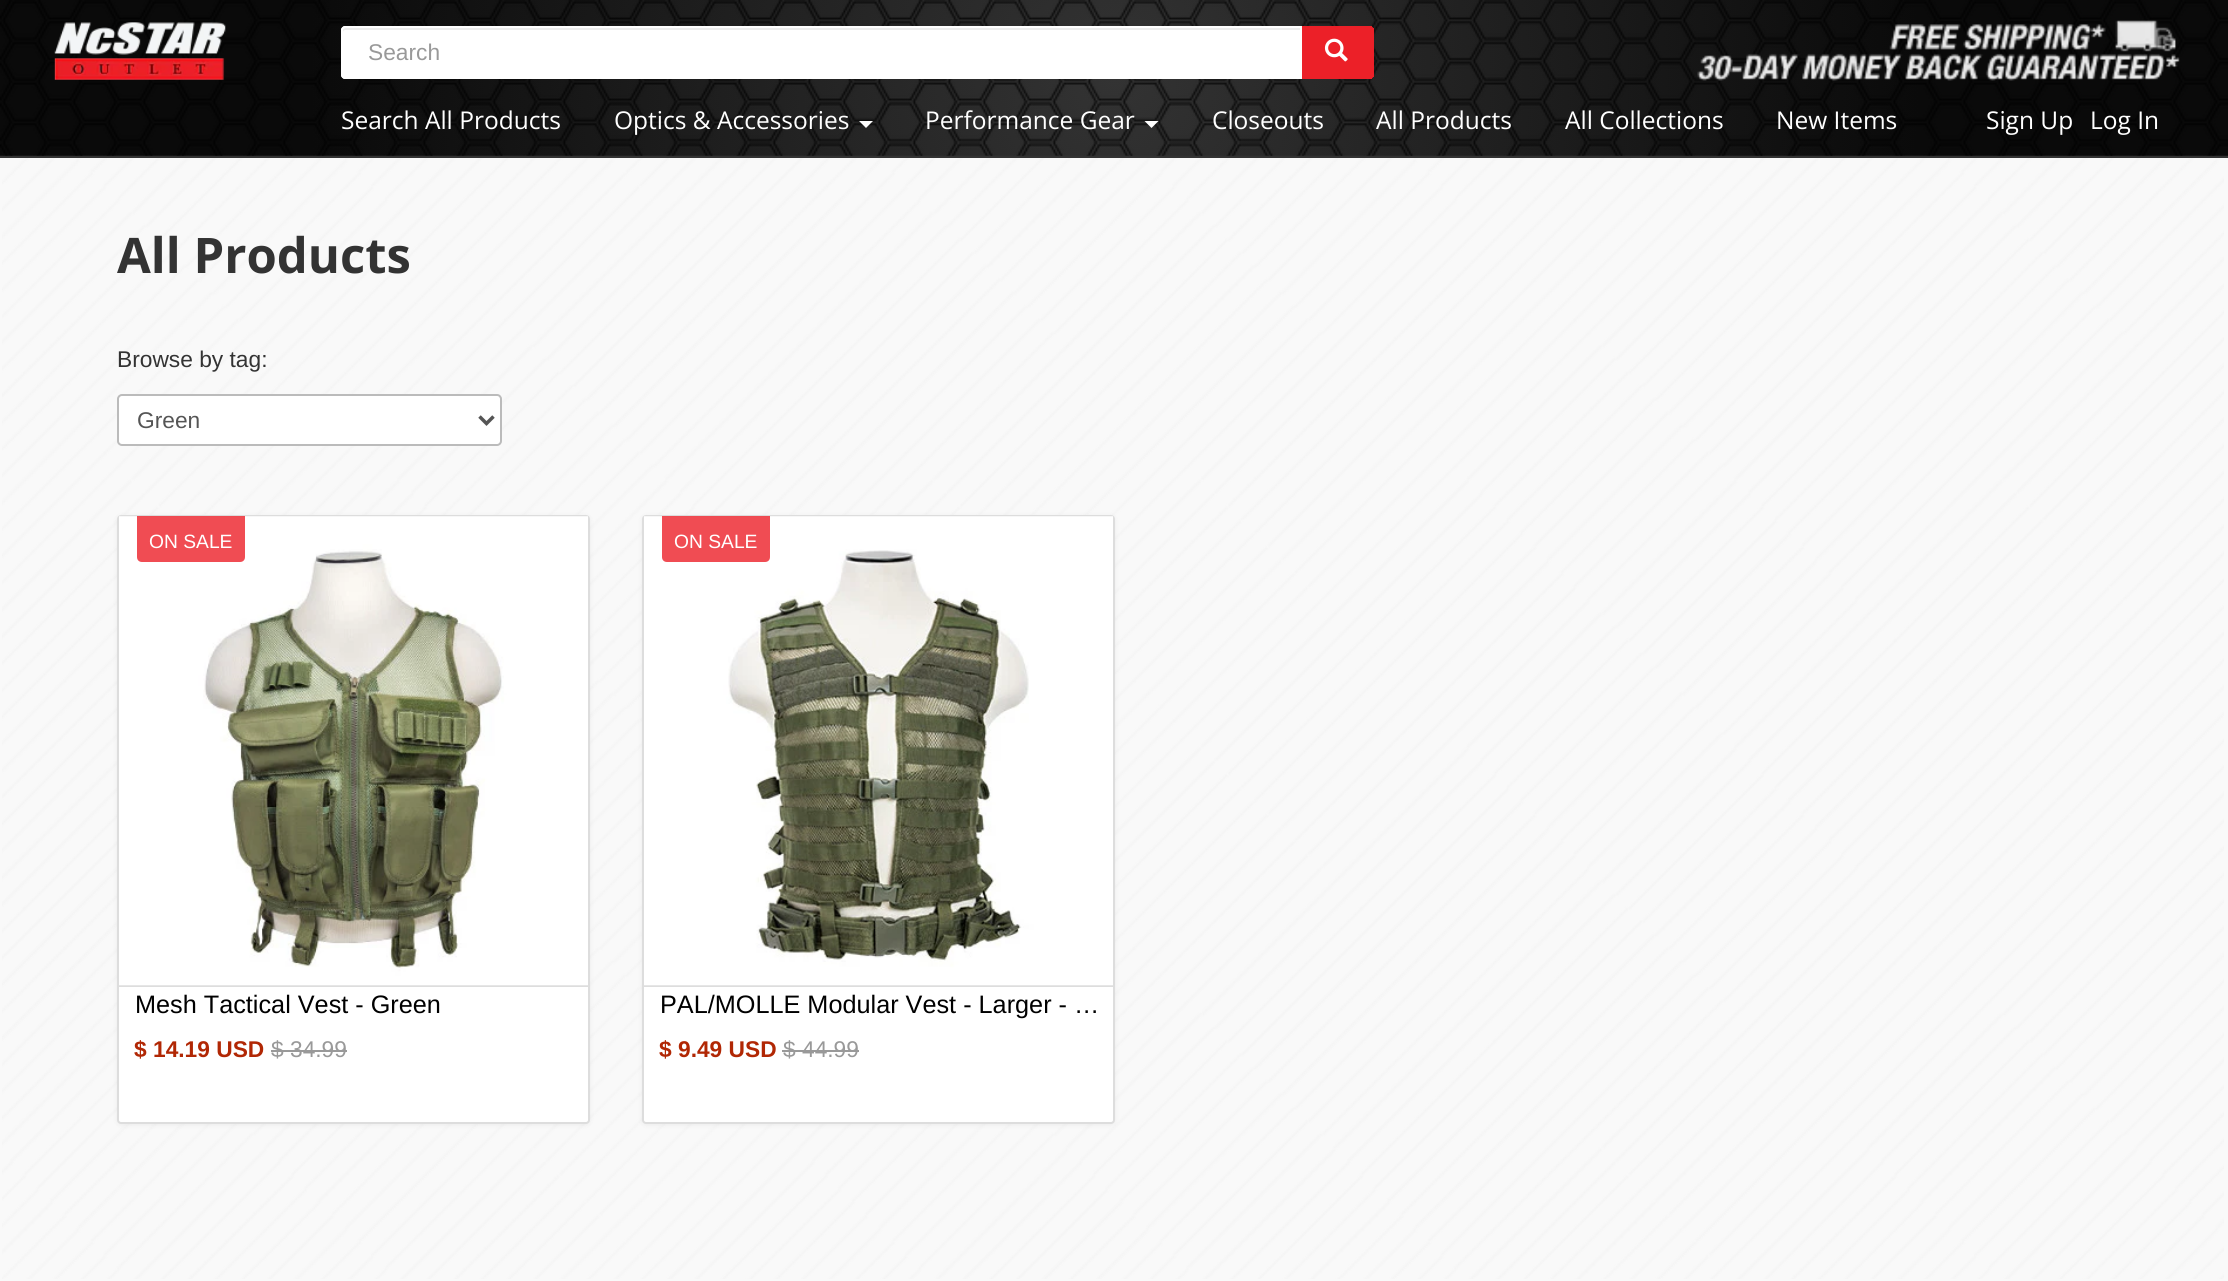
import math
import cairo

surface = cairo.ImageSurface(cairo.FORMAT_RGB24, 2228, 1281)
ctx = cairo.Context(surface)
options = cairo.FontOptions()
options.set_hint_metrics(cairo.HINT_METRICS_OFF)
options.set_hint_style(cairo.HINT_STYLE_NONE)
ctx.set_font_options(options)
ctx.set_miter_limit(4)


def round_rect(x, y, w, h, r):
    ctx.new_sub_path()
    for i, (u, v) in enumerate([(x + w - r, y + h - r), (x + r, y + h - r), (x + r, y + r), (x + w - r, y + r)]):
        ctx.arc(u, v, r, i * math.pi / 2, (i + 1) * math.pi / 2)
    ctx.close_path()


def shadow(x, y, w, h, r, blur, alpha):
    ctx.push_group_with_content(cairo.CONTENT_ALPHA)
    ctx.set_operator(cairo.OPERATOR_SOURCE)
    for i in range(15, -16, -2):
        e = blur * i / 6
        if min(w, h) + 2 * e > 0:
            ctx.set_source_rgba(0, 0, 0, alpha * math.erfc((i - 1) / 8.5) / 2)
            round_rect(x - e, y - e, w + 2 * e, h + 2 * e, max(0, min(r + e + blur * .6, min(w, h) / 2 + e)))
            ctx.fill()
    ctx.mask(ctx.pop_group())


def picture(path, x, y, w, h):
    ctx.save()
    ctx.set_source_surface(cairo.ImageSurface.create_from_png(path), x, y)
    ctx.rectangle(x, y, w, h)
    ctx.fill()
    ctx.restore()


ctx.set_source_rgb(0.973, 0.973, 0.973)
ctx.paint()
picture("img1.png", 2, 158, 2222, 1121)
ctx.set_source_rgb(0.2, 0.2, 0.2)
ctx.rectangle(0, 155, 2228, 3)
ctx.fill()
picture("img2.png", 0, 0, 2228, 156)
picture("img3.png", 54, 22, 172, 58)
ctx.set_source_rgb(1, 1, 1)
ctx.new_path()
ctx.move_to(345, 26)
ctx.line_to(1302, 26)
ctx.line_to(1302, 79)
ctx.line_to(345, 79)
ctx.curve_to(343, 79, 341, 77, 341, 75)
ctx.line_to(341, 30)
ctx.curve_to(341, 28, 343, 26, 345, 26)
ctx.close_path()
ctx.fill()
ctx.set_source_rgb(0.925, 0.925, 0.925)
ctx.new_path()
ctx.move_to(345, 30)
ctx.line_to(1300, 30)
ctx.line_to(1300, 28)
ctx.line_to(345, 28)
ctx.line_to(343, 29)
ctx.line_to(343, 32)
ctx.curve_to(343, 31, 344, 30, 345, 30)
ctx.close_path()
ctx.fill()
ctx.new_path()
ctx.move_to(345, 27)
ctx.line_to(1301, 27)
ctx.line_to(1301, 78)
ctx.line_to(345, 78)
ctx.curve_to(343.5, 78, 342, 76.5, 342, 75)
ctx.line_to(342, 30)
ctx.curve_to(342, 28.5, 343.5, 27, 345, 27)
ctx.close_path()
ctx.set_source_rgb(1, 1, 1)
ctx.stroke()
ctx.select_font_face("Liberation Sans")
ctx.set_font_size(22.75)
ctx.set_source_rgb(0.6, 0.6, 0.6)
ctx.move_to(368, 60)
ctx.show_text("Search")
ctx.set_source_rgb(0.925, 0.125, 0.157)
ctx.new_path()
ctx.move_to(1302, 26)
ctx.line_to(1370, 26)
ctx.curve_to(1372, 26, 1374, 28, 1374, 30)
ctx.line_to(1374, 75)
ctx.curve_to(1374, 77, 1372, 79, 1370, 79)
ctx.line_to(1302, 79)
ctx.close_path()
ctx.fill()
ctx.rectangle(1370, 26, 2, 1)
ctx.fill()
ctx.rectangle(1373, 28, 1, 49)
ctx.fill()
ctx.rectangle(1370, 78, 2, 1)
ctx.fill()
picture("img4.png", 1324, 38, 24, 24)
picture("img5.png", 1697, 20, 483, 61)
ctx.select_font_face("Open Sans")
ctx.set_font_size(24.5)
ctx.set_source_rgb(1, 1, 1)
ctx.move_to(341, 129)
ctx.show_text("Search All Products")
ctx.move_to(614, 129)
ctx.show_text("Optics & Accessories")
ctx.new_path()
ctx.move_to(859, 121)
ctx.line_to(873, 121)
ctx.line_to(866, 128)
ctx.close_path()
ctx.fill()
ctx.move_to(925, 129)
ctx.show_text("Performance Gear")
ctx.new_path()
ctx.move_to(1144.5, 121)
ctx.line_to(1158.5, 121)
ctx.line_to(1151.5, 128)
ctx.close_path()
ctx.fill()
ctx.move_to(1212, 129)
ctx.show_text("Closeouts")
ctx.move_to(1376, 129)
ctx.show_text("All Products")
ctx.move_to(1565, 129)
ctx.show_text("All Collections")
ctx.move_to(1776, 129)
ctx.show_text("New Items")
ctx.move_to(1986, 129)
ctx.show_text("Sign Up")
ctx.move_to(2090, 129)
ctx.show_text("Log In")
ctx.select_font_face("Open Sans", cairo.FONT_SLANT_NORMAL, cairo.FONT_WEIGHT_BOLD)
ctx.set_font_size(49)
ctx.set_source_rgb(0.2, 0.2, 0.2)
ctx.move_to(117, 273)
ctx.show_text("All Products")
ctx.select_font_face("Liberation Sans")
ctx.set_font_size(22.75)
ctx.move_to(117, 367)
ctx.show_text("Browse by tag:")
ctx.set_source_rgb(1, 1, 1)
round_rect(118, 395, 383, 50, 4)
ctx.fill_preserve()
ctx.set_source_rgb(0.733, 0.733, 0.733)
ctx.stroke()
ctx.new_path()
ctx.move_to(479.5, 416.5)
ctx.line_to(486.5, 423.5)
ctx.line_to(493.5, 416.5)
ctx.set_source_rgb(0.333, 0.333, 0.333)
ctx.set_line_width(3.5)
ctx.stroke()
ctx.move_to(137, 428)
ctx.show_text("Green")
ctx.set_source_rgb(0, 0, 0)
shadow(117, 516, 473, 609, 4, 2.5, 0.06)
ctx.set_source_rgb(1, 1, 1)
round_rect(118, 516, 471, 607, 3)
ctx.fill_preserve()
ctx.set_source_rgb(0.867, 0.867, 0.867)
ctx.set_line_width(2)
ctx.stroke()
ctx.rectangle(119, 985, 469, 2)
ctx.fill()
picture("img6.png", 119, 516, 469, 470)
ctx.set_source_rgba(0.925, 0.125, 0.157, 0.8)
ctx.new_path()
ctx.move_to(137, 516)
ctx.line_to(245, 516)
ctx.line_to(245, 557)
ctx.curve_to(245, 560, 243, 562, 240, 562)
ctx.line_to(142, 562)
ctx.curve_to(139, 562, 137, 560, 137, 557)
ctx.close_path()
ctx.fill()
ctx.set_font_size(19.25)
ctx.set_source_rgb(1, 1, 1)
ctx.move_to(149, 548)
ctx.show_text("ON SALE")
ctx.set_font_size(25.25)
ctx.set_source_rgb(0, 0, 0)
ctx.move_to(135, 1013)
ctx.show_text("Mesh Tactical Vest - Green")
ctx.select_font_face("Liberation Sans", cairo.FONT_SLANT_NORMAL, cairo.FONT_WEIGHT_BOLD)
ctx.set_font_size(22.75)
ctx.set_source_rgb(0.694, 0.153, 0.016)
ctx.move_to(134, 1057)
ctx.show_text("$ 14.19 USD")
ctx.select_font_face("Liberation Sans")
ctx.set_source_rgb(0.6, 0.6, 0.6)
ctx.move_to(271, 1057)
ctx.show_text("$ 34.99")
ctx.rectangle(271, 1050, 76, 2)
ctx.fill()
ctx.set_source_rgb(0, 0, 0)
shadow(642, 516, 473, 609, 4, 2.5, 0.06)
ctx.set_source_rgb(1, 1, 1)
round_rect(643, 516, 471, 607, 3)
ctx.fill_preserve()
ctx.set_source_rgb(0.867, 0.867, 0.867)
ctx.stroke()
ctx.rectangle(644, 985, 469, 2)
ctx.fill()
picture("img7.png", 644, 516, 469, 470)
ctx.set_source_rgba(0.925, 0.125, 0.157, 0.8)
ctx.new_path()
ctx.move_to(662, 516)
ctx.line_to(770, 516)
ctx.line_to(770, 557)
ctx.curve_to(770, 560, 768, 562, 765, 562)
ctx.line_to(667, 562)
ctx.curve_to(664, 562, 662, 560, 662, 557)
ctx.close_path()
ctx.fill()
ctx.set_font_size(19.25)
ctx.set_source_rgb(1, 1, 1)
ctx.move_to(674, 548)
ctx.show_text("ON SALE")
ctx.set_font_size(25.25)
ctx.set_source_rgb(0, 0, 0)
ctx.move_to(660, 1013)
ctx.show_text("PAL/MOLLE Modular Vest - Larger - …")
ctx.select_font_face("Liberation Sans", cairo.FONT_SLANT_NORMAL, cairo.FONT_WEIGHT_BOLD)
ctx.set_font_size(22.75)
ctx.set_source_rgb(0.694, 0.153, 0.016)
ctx.move_to(659, 1057)
ctx.show_text("$ 9.49 USD")
ctx.select_font_face("Liberation Sans")
ctx.set_source_rgb(0.6, 0.6, 0.6)
ctx.move_to(783, 1057)
ctx.show_text("$ 44.99")
ctx.rectangle(782, 1050, 77, 2)
ctx.fill()
surface.write_to_png("page.png")
